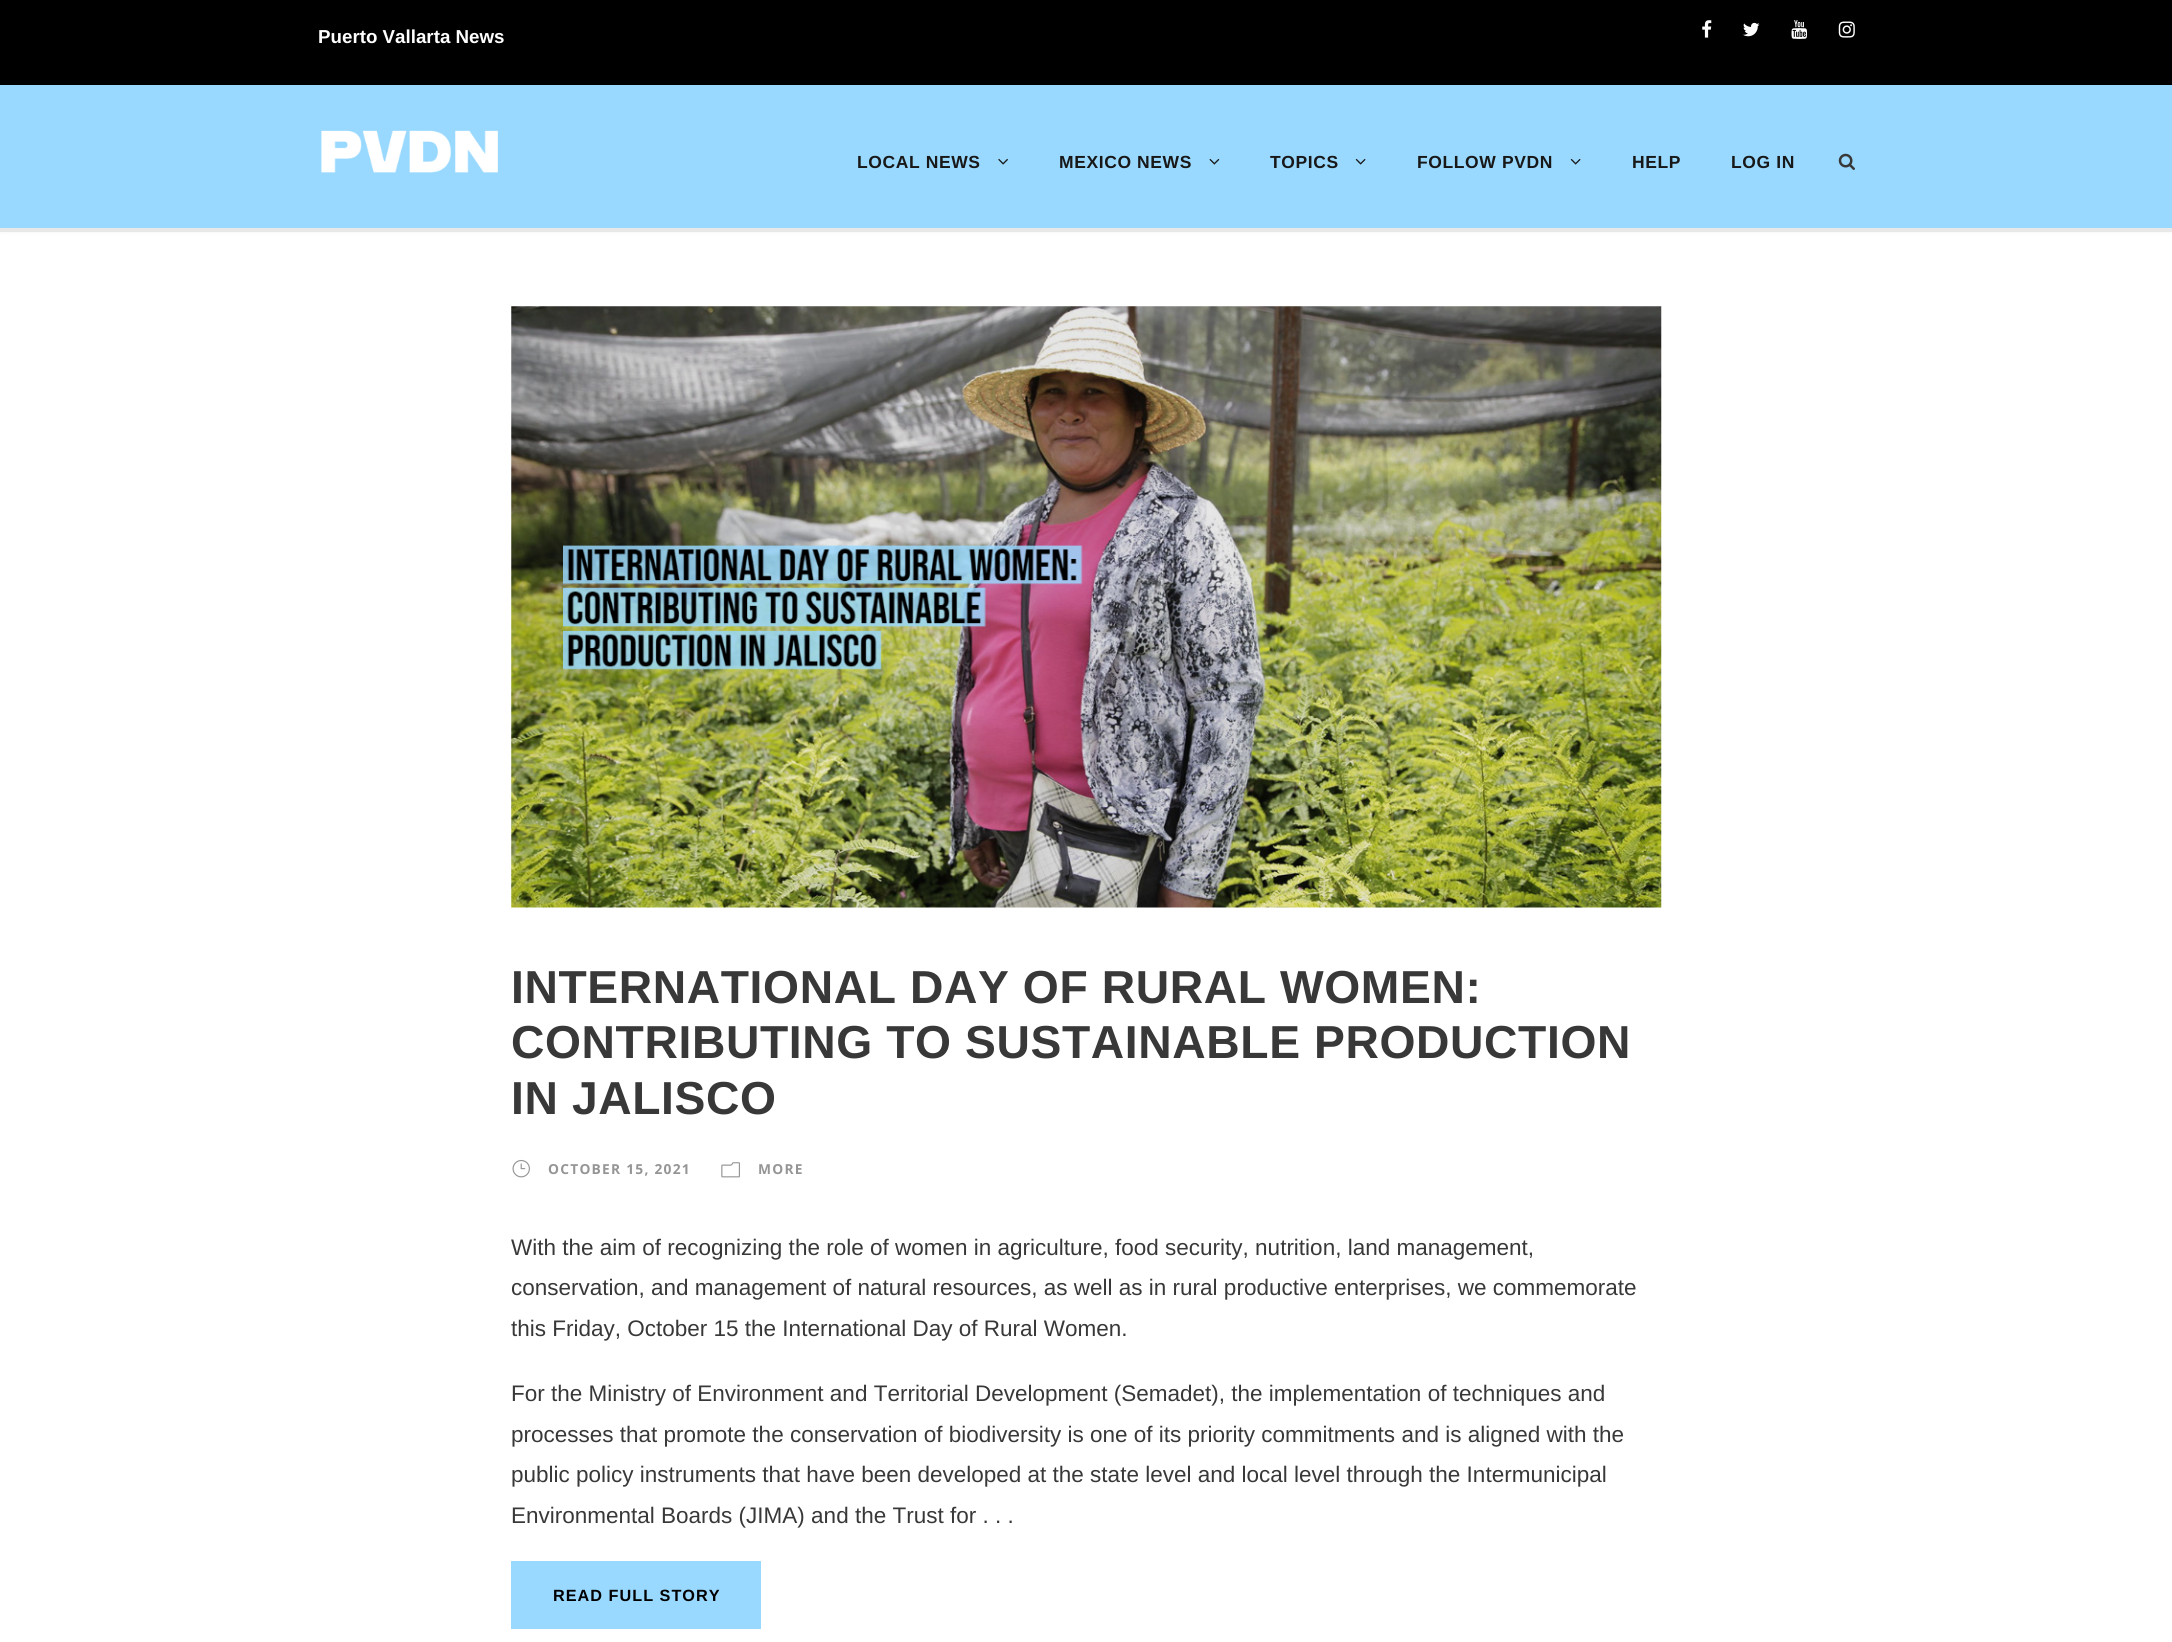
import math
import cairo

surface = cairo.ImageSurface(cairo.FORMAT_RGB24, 2172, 1642)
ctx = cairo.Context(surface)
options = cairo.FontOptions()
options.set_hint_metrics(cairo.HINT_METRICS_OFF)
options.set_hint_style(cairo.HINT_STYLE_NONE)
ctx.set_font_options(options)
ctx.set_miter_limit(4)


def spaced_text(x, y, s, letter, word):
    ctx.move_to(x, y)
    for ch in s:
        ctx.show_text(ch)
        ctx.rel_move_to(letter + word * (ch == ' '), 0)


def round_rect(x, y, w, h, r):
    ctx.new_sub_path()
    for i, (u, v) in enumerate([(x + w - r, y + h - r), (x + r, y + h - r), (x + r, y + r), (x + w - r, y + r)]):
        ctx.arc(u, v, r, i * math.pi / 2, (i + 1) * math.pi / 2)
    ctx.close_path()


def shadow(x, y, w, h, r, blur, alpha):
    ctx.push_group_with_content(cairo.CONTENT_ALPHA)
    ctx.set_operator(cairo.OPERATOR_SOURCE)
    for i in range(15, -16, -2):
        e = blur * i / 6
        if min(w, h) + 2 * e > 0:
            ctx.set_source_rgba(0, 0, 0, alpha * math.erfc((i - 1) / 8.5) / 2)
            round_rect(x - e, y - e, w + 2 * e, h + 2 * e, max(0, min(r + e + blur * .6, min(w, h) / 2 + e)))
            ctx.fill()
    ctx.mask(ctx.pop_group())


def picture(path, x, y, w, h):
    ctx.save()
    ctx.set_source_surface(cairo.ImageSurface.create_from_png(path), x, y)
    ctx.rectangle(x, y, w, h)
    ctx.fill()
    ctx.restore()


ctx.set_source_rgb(1, 1, 1)
ctx.paint()
ctx.set_source_rgb(0, 0, 0)
ctx.rectangle(0, 0, 2172, 85)
ctx.fill()
ctx.select_font_face("Liberation Sans", cairo.FONT_SLANT_NORMAL, cairo.FONT_WEIGHT_BOLD)
ctx.set_font_size(18.75)
ctx.set_source_rgb(1, 1, 1)
ctx.move_to(318, 43)
ctx.show_text("Puerto Vallarta News")
picture("img1.png", 1702, 20, 10, 18)
picture("img2.png", 1743, 22, 17, 15)
picture("img3.png", 1791, 20, 17, 19)
picture("img4.png", 1838, 21, 17, 17)
ctx.set_source_rgb(0, 0, 0)
shadow(0, 85, 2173, 146, 0, 2, 0.1)
ctx.set_source_rgb(0.91, 0.91, 0.91)
ctx.rectangle(0, 228, 2172, 4)
ctx.fill()
ctx.set_source_rgb(0.6, 0.851, 1)
ctx.rectangle(0, 85, 2172, 143)
ctx.fill()
picture("img5.png", 321, 130, 177, 43)
ctx.set_font_size(17.5)
ctx.set_source_rgb(0.094, 0.094, 0.094)
spaced_text(857, 168, "LOCAL NEWS", 0.6, 0)
picture("img6.png", 998, 158, 10, 7)
spaced_text(1059, 168, "MEXICO NEWS", 0.6, 0)
picture("img7.png", 1209, 158, 11, 7)
spaced_text(1270, 168, "TOPICS", 0.6, 0)
picture("img8.png", 1355, 158, 11, 7)
spaced_text(1417, 168, "FOLLOW PVDN", 0.6, 0)
picture("img8.png", 1570, 158, 11, 7)
spaced_text(1632, 168, "HELP", 0.6, 0)
spaced_text(1731, 168, "LOG IN", 0.6, 0)
picture("img9.png", 1838, 153, 17, 17)
picture("img10.png", 511, 306, 1151, 602)
ctx.set_font_size(46.25)
ctx.set_source_rgb(0.22, 0.22, 0.22)
spaced_text(511, 1003, "INTERNATIONAL DAY OF RURAL WOMEN:", 0.6, 0)
spaced_text(511, 1058, "CONTRIBUTING TO SUSTAINABLE PRODUCTION", 0.6, 0)
spaced_text(511, 1114, "IN JALISCO", 0.6, 0)
picture("img11.png", 512, 1159, 18, 19)
ctx.select_font_face("Open Sans", cairo.FONT_SLANT_NORMAL, cairo.FONT_WEIGHT_BOLD)
ctx.set_font_size(13.75)
ctx.set_source_rgb(0.584, 0.584, 0.584)
spaced_text(548, 1174, "OCTOBER 15, 2021", 1.25, 0)
picture("img12.png", 721, 1162, 19, 16)
spaced_text(758, 1174, "MORE", 1.25, 0)
ctx.select_font_face("Liberation Sans")
ctx.set_font_size(22.5)
ctx.set_source_rgb(0.22, 0.22, 0.22)
ctx.move_to(511, 1255)
ctx.show_text("With the aim of recognizing the role of women in agriculture, food security, nutrition, land management,")
ctx.move_to(511, 1295)
ctx.show_text("conservation, and management of natural resources, as well as in rural productive enterprises, we commemorate")
ctx.move_to(511, 1336)
ctx.show_text("this Friday, October 15 the International Day of Rural Women.")
ctx.move_to(511, 1401)
ctx.show_text("For the Ministry of Environment and Territorial Development (Semadet), the implementation of techniques and")
ctx.move_to(511, 1442)
ctx.show_text("processes that promote the conservation of biodiversity is one of its priority commitments and is aligned with the")
ctx.move_to(511, 1482)
ctx.show_text("public policy instruments that have been developed at the state level and local level through the Intermunicipal")
ctx.move_to(511, 1523)
ctx.show_text("Environmental Boards (JIMA) and the Trust for . . .")
ctx.set_source_rgb(0.6, 0.851, 1)
ctx.rectangle(511, 1561, 250, 68)
ctx.fill()
ctx.select_font_face("Liberation Sans", cairo.FONT_SLANT_NORMAL, cairo.FONT_WEIGHT_BOLD)
ctx.set_font_size(16.25)
ctx.set_source_rgb(0, 0, 0)
spaced_text(553, 1601, "READ FULL STORY", 1, 0)
surface.write_to_png("page.png")
